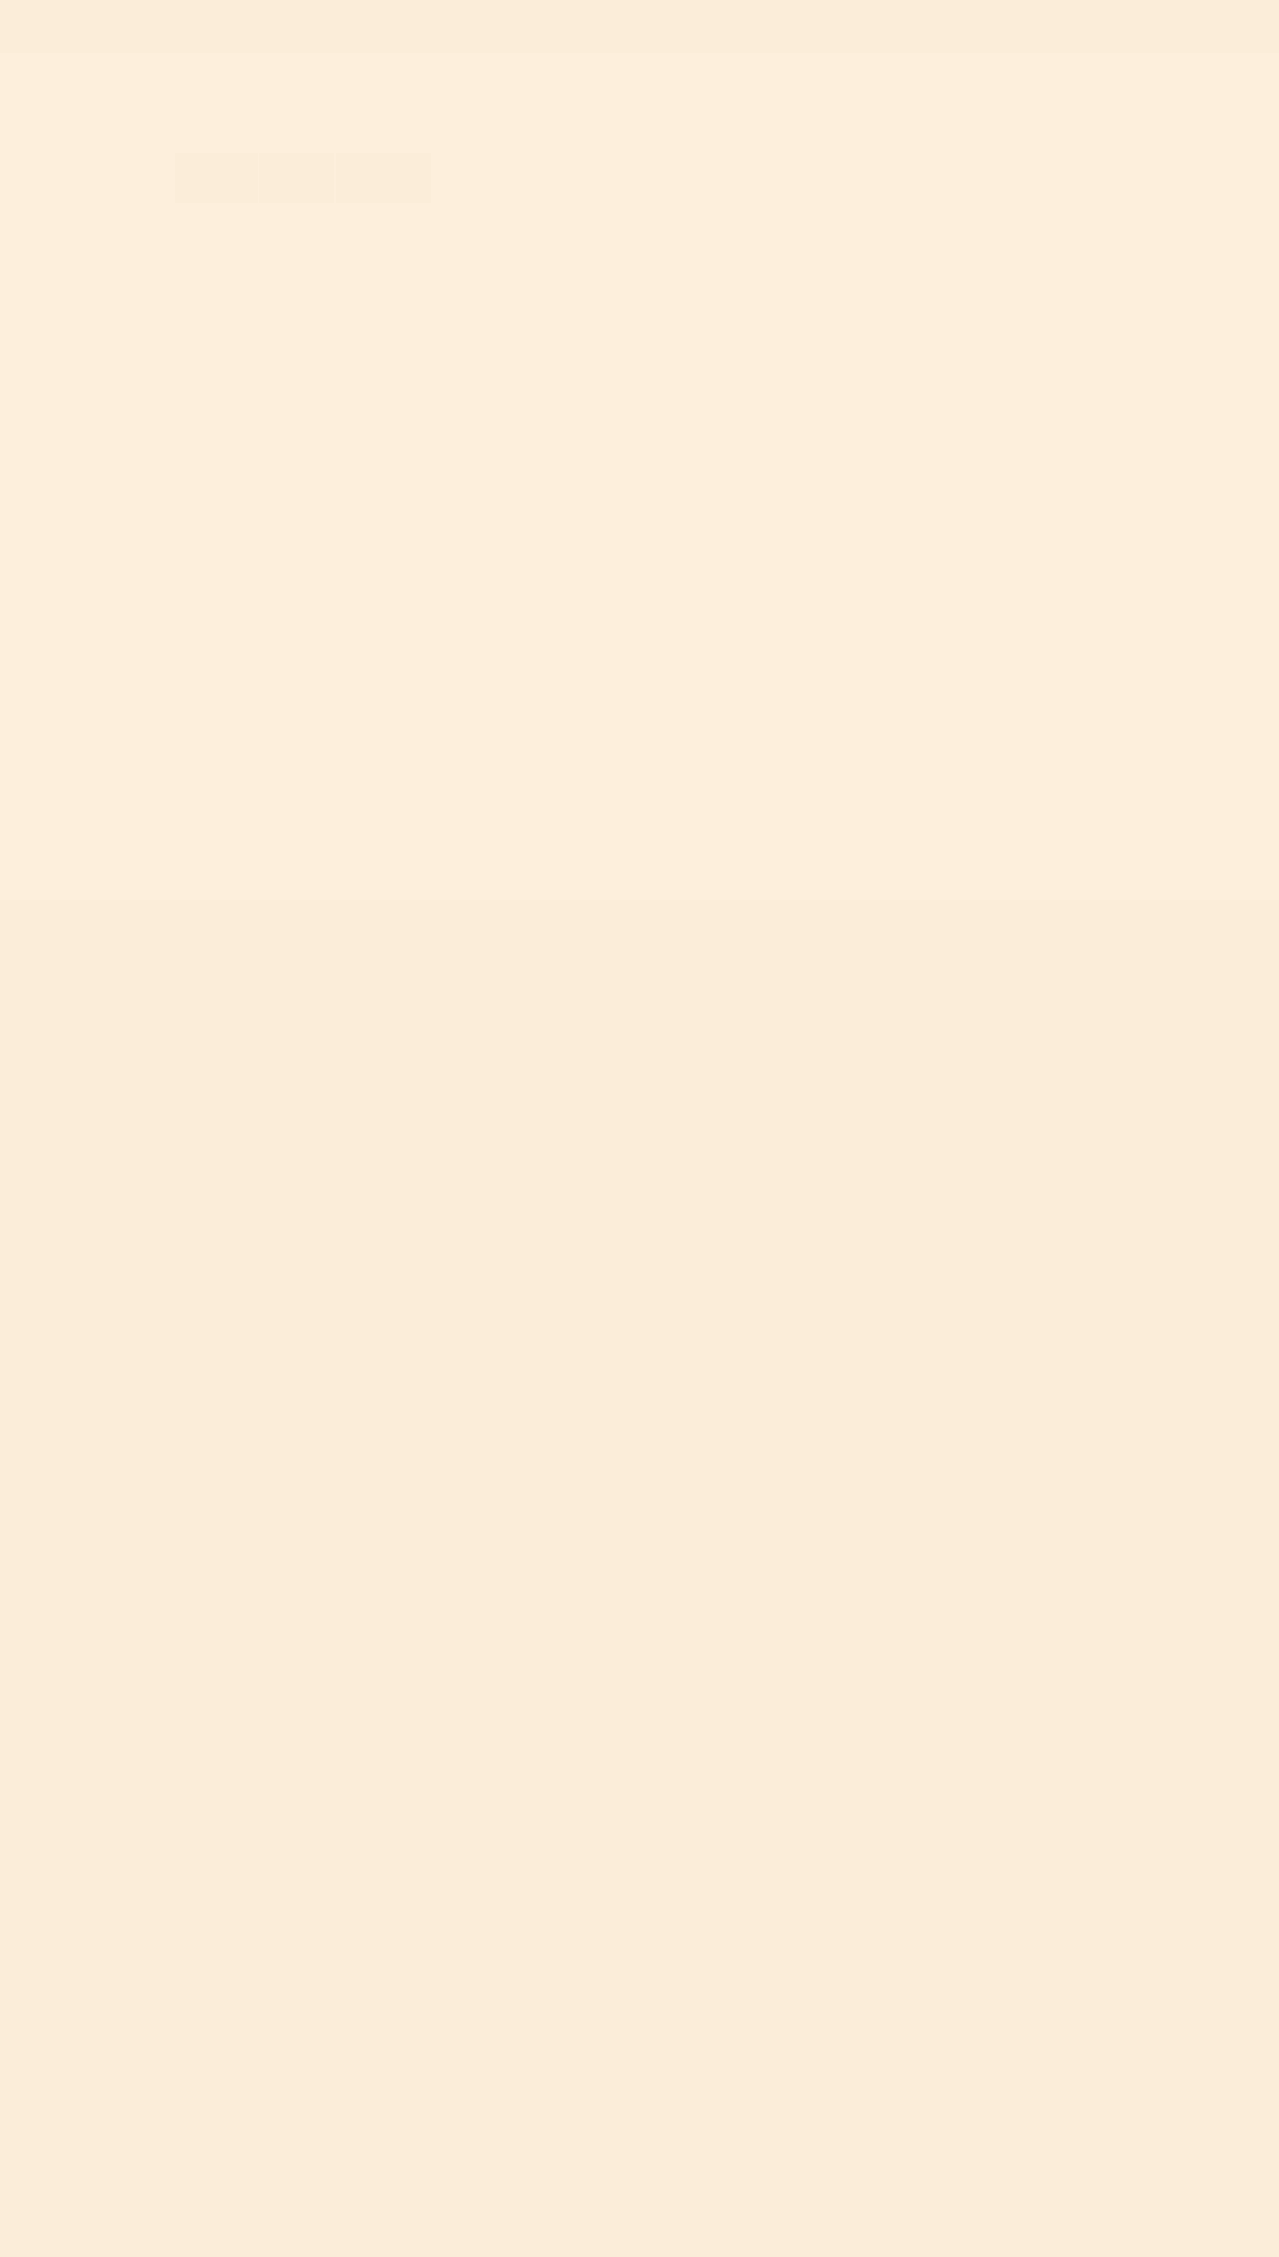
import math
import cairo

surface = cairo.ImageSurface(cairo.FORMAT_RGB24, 1279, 2257)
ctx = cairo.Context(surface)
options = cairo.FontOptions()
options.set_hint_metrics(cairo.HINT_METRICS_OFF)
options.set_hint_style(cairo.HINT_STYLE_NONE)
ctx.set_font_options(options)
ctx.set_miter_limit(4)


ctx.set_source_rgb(0.984, 0.929, 0.851)
ctx.paint()
ctx.set_source_rgb(0.992, 0.937, 0.863)
ctx.rectangle(0, 53, 1279, 847)
ctx.fill()
ctx.set_source_rgb(0.984, 0.929, 0.851)
ctx.rectangle(175, 153, 83, 50)
ctx.fill()
ctx.rectangle(259, 153, 75, 50)
ctx.fill()
ctx.rectangle(336, 153, 95, 50)
ctx.fill()
surface.write_to_png("page.png")
